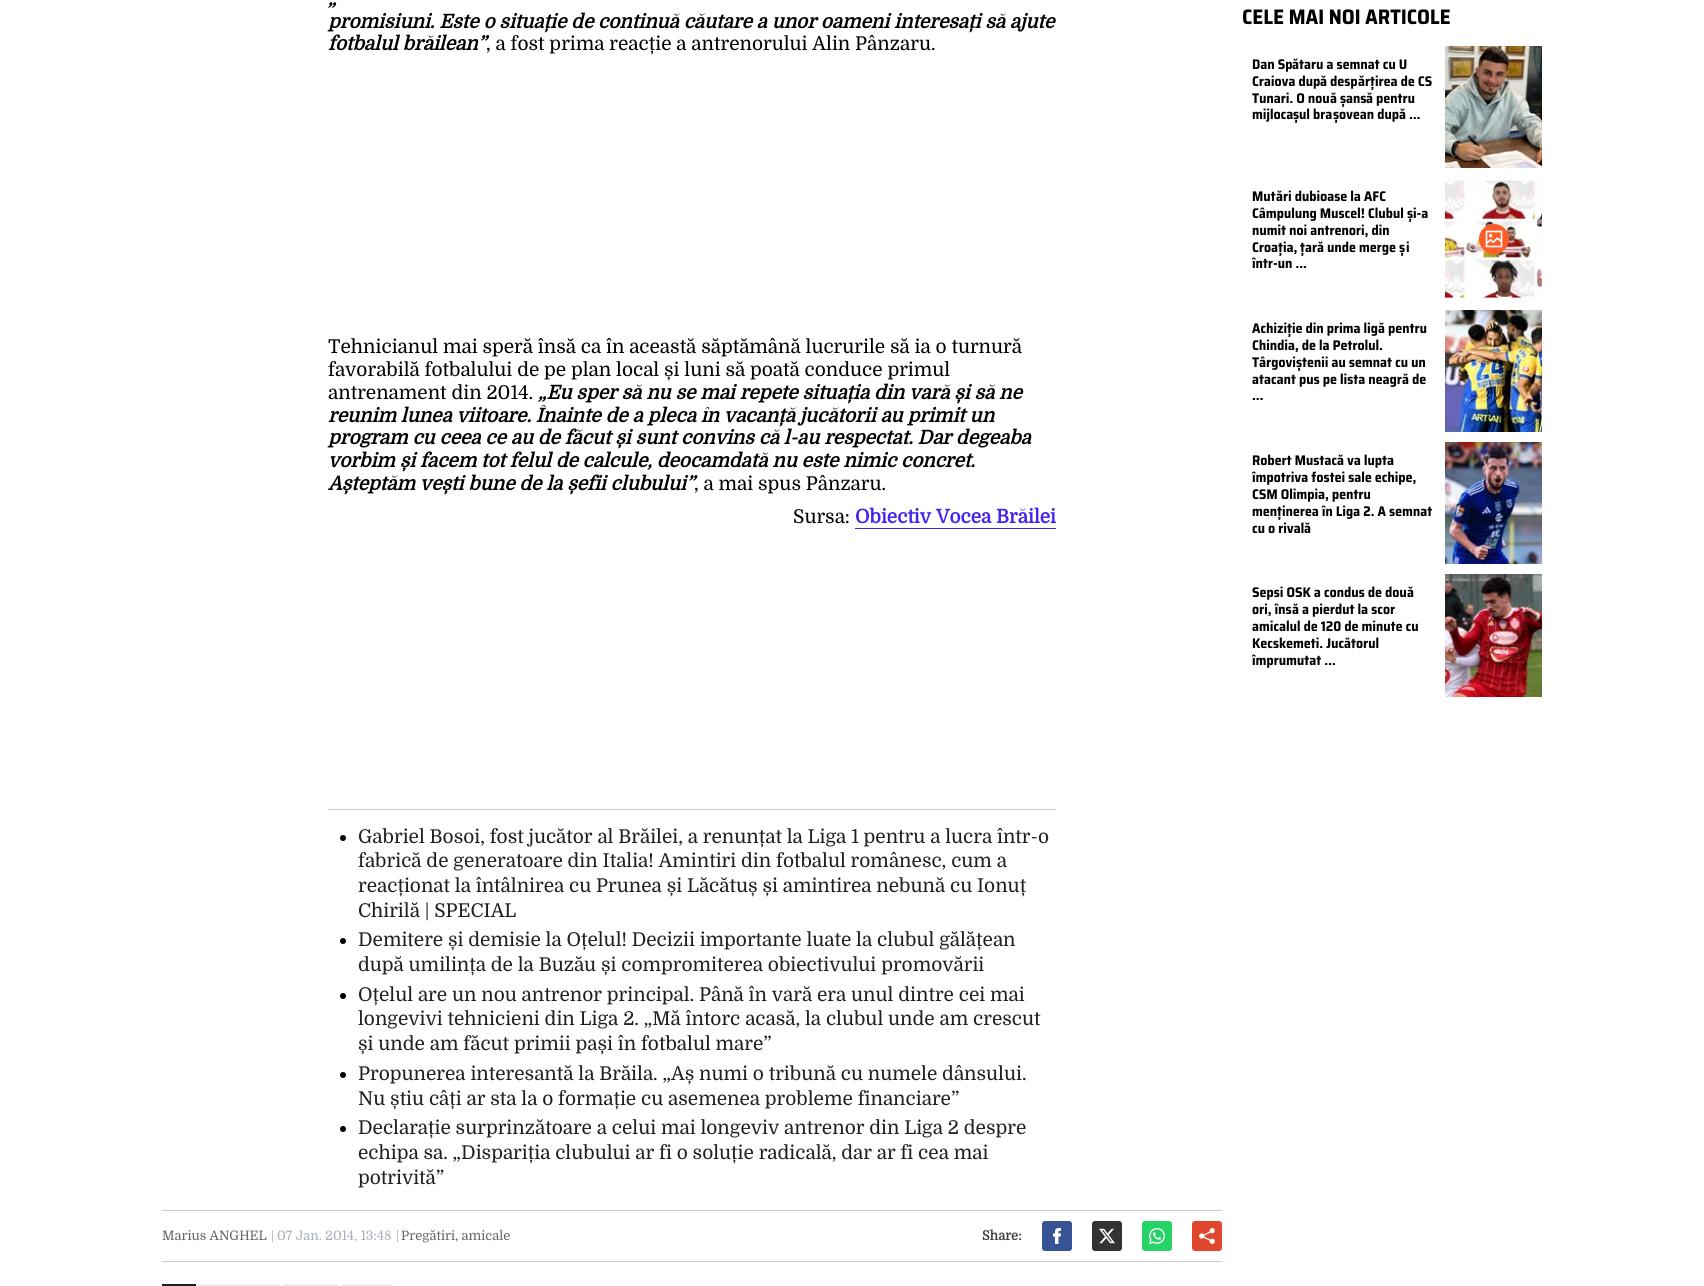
import math
import cairo

surface = cairo.ImageSurface(cairo.FORMAT_RGB24, 1704, 1286)
ctx = cairo.Context(surface)
options = cairo.FontOptions()
options.set_hint_metrics(cairo.HINT_METRICS_OFF)
options.set_hint_style(cairo.HINT_STYLE_NONE)
ctx.set_font_options(options)
ctx.set_miter_limit(4)


def round_rect(x, y, w, h, r):
    ctx.new_sub_path()
    for i, (u, v) in enumerate([(x + w - r, y + h - r), (x + r, y + h - r), (x + r, y + r), (x + w - r, y + r)]):
        ctx.arc(u, v, r, i * math.pi / 2, (i + 1) * math.pi / 2)
    ctx.close_path()


def picture(path, x, y, w, h):
    ctx.save()
    ctx.set_source_surface(cairo.ImageSurface.create_from_png(path), x, y)
    ctx.rectangle(x, y, w, h)
    ctx.fill()
    ctx.restore()


ctx.set_source_rgb(1, 1, 1)
ctx.paint()
ctx.select_font_face("Domine", cairo.FONT_SLANT_ITALIC, cairo.FONT_WEIGHT_BOLD)
ctx.set_font_size(19)
ctx.set_source_rgb(0, 0, 0)
ctx.move_to(328, 5)
ctx.show_text("„")
ctx.move_to(328, 28)
ctx.show_text("promisiuni. Este o situație de continuă căutare a unor oameni interesați să ajute")
ctx.move_to(328, 50)
ctx.show_text("fotbalul brăilean”")
ctx.select_font_face("Domine")
ctx.move_to(486, 50)
ctx.show_text(", a fost prima reacție a antrenorului Alin Pânzaru.")
ctx.move_to(328, 353)
ctx.show_text("Tehnicianul mai speră însă ca în această săptămână lucrurile să ia o turnură")
ctx.move_to(328, 376)
ctx.show_text("favorabilă fotbalului de pe plan local și luni să poată conduce primul")
ctx.move_to(328, 399)
ctx.show_text("antrenament din 2014.")
ctx.select_font_face("Domine", cairo.FONT_SLANT_ITALIC, cairo.FONT_WEIGHT_BOLD)
ctx.move_to(538, 399)
ctx.show_text("„Eu sper să nu se mai repete situația din vară și să ne")
ctx.move_to(328, 422)
ctx.show_text("reunim lunea viitoare. Înainte de a pleca în vacanță jucătorii au primit un")
ctx.move_to(328, 444)
ctx.show_text("program cu ceea ce au de făcut și sunt convins că l-au respectat. Dar degeaba")
ctx.move_to(328, 467)
ctx.show_text("vorbim și facem tot felul de calcule, deocamdată nu este nimic concret.")
ctx.move_to(328, 490)
ctx.show_text("Așteptăm vești bune de la șefii clubului”")
ctx.select_font_face("Domine")
ctx.move_to(694, 490)
ctx.show_text(", a mai spus Pânzaru.")
ctx.move_to(793, 523)
ctx.show_text("Sursa:")
ctx.select_font_face("Domine", cairo.FONT_SLANT_NORMAL, cairo.FONT_WEIGHT_BOLD)
ctx.set_source_rgb(0.267, 0.133, 0.933)
ctx.move_to(855, 523)
ctx.show_text("Obiectiv Vocea Brăilei")
ctx.rectangle(855, 528, 201, 1)
ctx.fill()
ctx.set_source_rgb(0.8, 0.8, 0.8)
ctx.rectangle(328, 809, 728, 1)
ctx.fill()
ctx.set_source_rgb(0, 0, 0)
ctx.arc(343, 838, 3, 0, 2 * math.pi)
ctx.fill()
ctx.select_font_face("Domine")
ctx.set_source_rgb(0.137, 0.122, 0.125)
ctx.move_to(358, 843)
ctx.show_text("Gabriel Bosoi, fost jucător al Brăilei, a renunțat la Liga 1 pentru a lucra într-o")
ctx.move_to(358, 867)
ctx.show_text("fabrică de generatoare din Italia! Amintiri din fotbalul românesc, cum a")
ctx.move_to(358, 892)
ctx.show_text("reacționat la întâlnirea cu Prunea și Lăcătuș și amintirea nebună cu Ionuț")
ctx.move_to(358, 917)
ctx.show_text("Chirilă | SPECIAL")
ctx.set_source_rgb(0, 0, 0)
ctx.new_path()
ctx.arc(343, 941, 3, 0, 2 * math.pi)
ctx.fill()
ctx.set_source_rgb(0.137, 0.122, 0.125)
ctx.move_to(358, 946)
ctx.show_text("Demitere și demisie la Oțelul! Decizii importante luate la clubul gălățean")
ctx.move_to(358, 971)
ctx.show_text("după umilința de la Buzău și compromiterea obiectivului promovării")
ctx.set_source_rgb(0, 0, 0)
ctx.new_path()
ctx.arc(343, 996, 3, 0, 2 * math.pi)
ctx.fill()
ctx.set_source_rgb(0.137, 0.122, 0.125)
ctx.move_to(358, 1001)
ctx.show_text("Oțelul are un nou antrenor principal. Până în vară era unul dintre cei mai")
ctx.move_to(358, 1025)
ctx.show_text("longevivi tehnicieni din Liga 2. „Mă întorc acasă, la clubul unde am crescut")
ctx.move_to(358, 1050)
ctx.show_text("și unde am făcut primii pași în fotbalul mare”")
ctx.set_source_rgb(0, 0, 0)
ctx.new_path()
ctx.arc(343, 1075, 3, 0, 2 * math.pi)
ctx.fill()
ctx.set_source_rgb(0.137, 0.122, 0.125)
ctx.move_to(358, 1080)
ctx.show_text("Propunerea interesantă la Brăila. „Aș numi o tribună cu numele dânsului.")
ctx.move_to(358, 1105)
ctx.show_text("Nu știu câți ar sta la o formație cu asemenea probleme financiare”")
ctx.set_source_rgb(0, 0, 0)
ctx.new_path()
ctx.arc(343, 1129, 3, 0, 2 * math.pi)
ctx.fill()
ctx.set_source_rgb(0.137, 0.122, 0.125)
ctx.move_to(358, 1134)
ctx.show_text("Declarație surprinzătoare a celui mai longeviv antrenor din Liga 2 despre")
ctx.move_to(358, 1159)
ctx.show_text("echipa sa. „Dispariția clubului ar fi o soluție radicală, dar ar fi cea mai")
ctx.move_to(358, 1184)
ctx.show_text("potrivită”")
ctx.set_source_rgb(0.8, 0.8, 0.8)
ctx.rectangle(162, 1210, 1060, 1)
ctx.fill()
ctx.rectangle(162, 1261, 1060, 1)
ctx.fill()
ctx.set_font_size(13)
ctx.set_source_rgb(0.4, 0.4, 0.4)
ctx.move_to(162, 1240)
ctx.show_text("Marius ANGHEL")
ctx.set_source_rgb(0.659, 0.686, 0.718)
ctx.move_to(271, 1240)
ctx.show_text("|")
ctx.move_to(277, 1240)
ctx.show_text("07 Jan. 2014, 13:48")
ctx.move_to(396, 1240)
ctx.show_text("|")
ctx.set_source_rgb(0.4, 0.4, 0.4)
ctx.move_to(401, 1240)
ctx.show_text("Pregătiri, amicale")
ctx.select_font_face("Domine", cairo.FONT_SLANT_NORMAL, cairo.FONT_WEIGHT_BOLD)
ctx.set_source_rgb(0.267, 0.267, 0.267)
ctx.move_to(982, 1240)
ctx.show_text("Share:")
ctx.set_source_rgb(0.212, 0.325, 0.588)
round_rect(1042, 1221, 30, 30, 3)
ctx.fill()
picture("img1.png", 1052, 1228, 10, 16)
ctx.set_source_rgb(0.2, 0.2, 0.2)
round_rect(1092, 1221, 30, 30, 3)
ctx.fill()
picture("img2.png", 1099, 1228, 16, 16)
ctx.set_source_rgb(0.145, 0.827, 0.4)
round_rect(1142, 1221, 30, 30, 3)
ctx.fill()
picture("img3.png", 1149, 1228, 16, 16)
ctx.set_source_rgb(0.878, 0.275, 0.18)
round_rect(1192, 1221, 30, 30, 3)
ctx.fill()
picture("img4.png", 1199, 1228, 16, 16)
ctx.set_source_rgb(0.137, 0.122, 0.125)
ctx.rectangle(162, 1284, 34, 2)
ctx.fill()
ctx.set_source_rgb(0.937, 0.937, 0.937)
ctx.rectangle(198, 1284, 81, 2)
ctx.fill()
ctx.rectangle(283, 1284, 55, 2)
ctx.fill()
ctx.rectangle(342, 1284, 51, 2)
ctx.fill()
picture("img5.png", 1243, 9, 207, 16)
picture("img6.png", 1252, 59, 40, 13)
picture("img7.png", 1292, 58, 7, 12)
picture("img8.png", 1299, 59, 108, 11)
picture("img9.png", 1252, 75, 68, 14)
picture("img7.png", 1320, 75, 7, 12)
picture("img10.png", 1330, 75, 28, 14)
picture("img7.png", 1358, 75, 7, 12)
picture("img11.png", 1365, 78, 5, 8)
picture("img12.png", 1370, 76, 5, 14)
picture("img13.png", 1375, 75, 57, 12)
picture("img14.png", 1252, 92, 77, 12)
picture("img7.png", 1330, 92, 7, 12)
picture("img15.png", 1340, 95, 6, 12)
picture("img16.png", 1346, 95, 20, 9)
picture("img7.png", 1366, 92, 7, 12)
picture("img17.png", 1376, 93, 39, 13)
picture("img18.png", 1252, 108, 41, 14)
picture("img15.png", 1293, 111, 6, 12)
picture("img19.png", 1299, 108, 33, 12)
picture("img15.png", 1333, 111, 6, 12)
picture("img20.png", 1339, 108, 60, 14)
picture("img7.png", 1399, 108, 7, 12)
picture("img21.png", 1409, 117, 11, 2)
picture("img22.png", 1445, 46, 97, 122)
picture("img23.png", 1252, 191, 24, 11)
picture("img7.png", 1276, 190, 7, 12)
picture("img24.png", 1283, 190, 103, 12)
picture("img25.png", 1252, 207, 152, 14)
picture("img15.png", 1407, 210, 6, 12)
picture("img26.png", 1413, 207, 15, 12)
picture("img27.png", 1252, 224, 137, 13)
picture("img28.png", 1252, 242, 26, 11)
picture("img12.png", 1278, 242, 5, 14)
picture("img29.png", 1283, 241, 14, 13)
picture("img12.png", 1300, 242, 5, 14)
picture("img30.png", 1305, 244, 12, 9)
picture("img7.png", 1317, 241, 7, 12)
picture("img31.png", 1327, 241, 69, 14)
picture("img15.png", 1399, 244, 6, 12)
picture("img32.png", 1406, 241, 3, 11)
picture("img33.png", 1252, 257, 54, 12)
picture("img34.png", 1445, 178, 97, 122)
ctx.set_source_rgb(1, 0.361, 0.149)
ctx.arc(1494, 239, 15, 0, 2 * math.pi)
ctx.fill()
picture("img35.png", 1485, 230, 18, 18)
picture("img36.png", 1252, 322, 35, 12)
picture("img12.png", 1287, 323, 5, 14)
picture("img37.png", 1292, 322, 86, 14)
picture("img7.png", 1378, 322, 7, 12)
picture("img17.png", 1388, 323, 39, 13)
picture("img38.png", 1252, 339, 131, 13)
picture("img39.png", 1252, 356, 44, 14)
picture("img15.png", 1296, 359, 6, 12)
picture("img40.png", 1302, 356, 124, 12)
picture("img41.png", 1252, 373, 150, 14)
picture("img7.png", 1402, 373, 7, 12)
picture("img42.png", 1412, 373, 14, 12)
picture("img43.png", 1252, 398, 11, 2)
picture("img44.png", 1445, 310, 97, 122)
picture("img45.png", 1252, 454, 85, 12)
picture("img7.png", 1337, 454, 7, 12)
picture("img46.png", 1347, 454, 47, 14)
picture("img47.png", 1252, 471, 164, 14)
picture("img48.png", 1252, 488, 119, 14)
picture("img49.png", 1252, 508, 25, 9)
picture("img12.png", 1277, 506, 5, 14)
picture("img50.png", 1282, 505, 150, 14)
picture("img51.png", 1252, 522, 52, 12)
picture("img7.png", 1304, 522, 7, 12)
picture("img52.png", 1445, 442, 97, 122)
picture("img53.png", 1252, 586, 154, 14)
picture("img7.png", 1407, 586, 7, 12)
picture("img54.png", 1252, 603, 40, 13)
picture("img7.png", 1292, 603, 7, 12)
picture("img55.png", 1302, 603, 93, 14)
picture("img56.png", 1252, 620, 166, 12)
picture("img57.png", 1252, 637, 92, 12)
picture("img7.png", 1344, 637, 7, 12)
picture("img58.png", 1351, 637, 28, 12)
picture("img59.png", 1252, 654, 83, 14)
picture("img60.png", 1445, 574, 97, 123)
surface.write_to_png("page.png")
